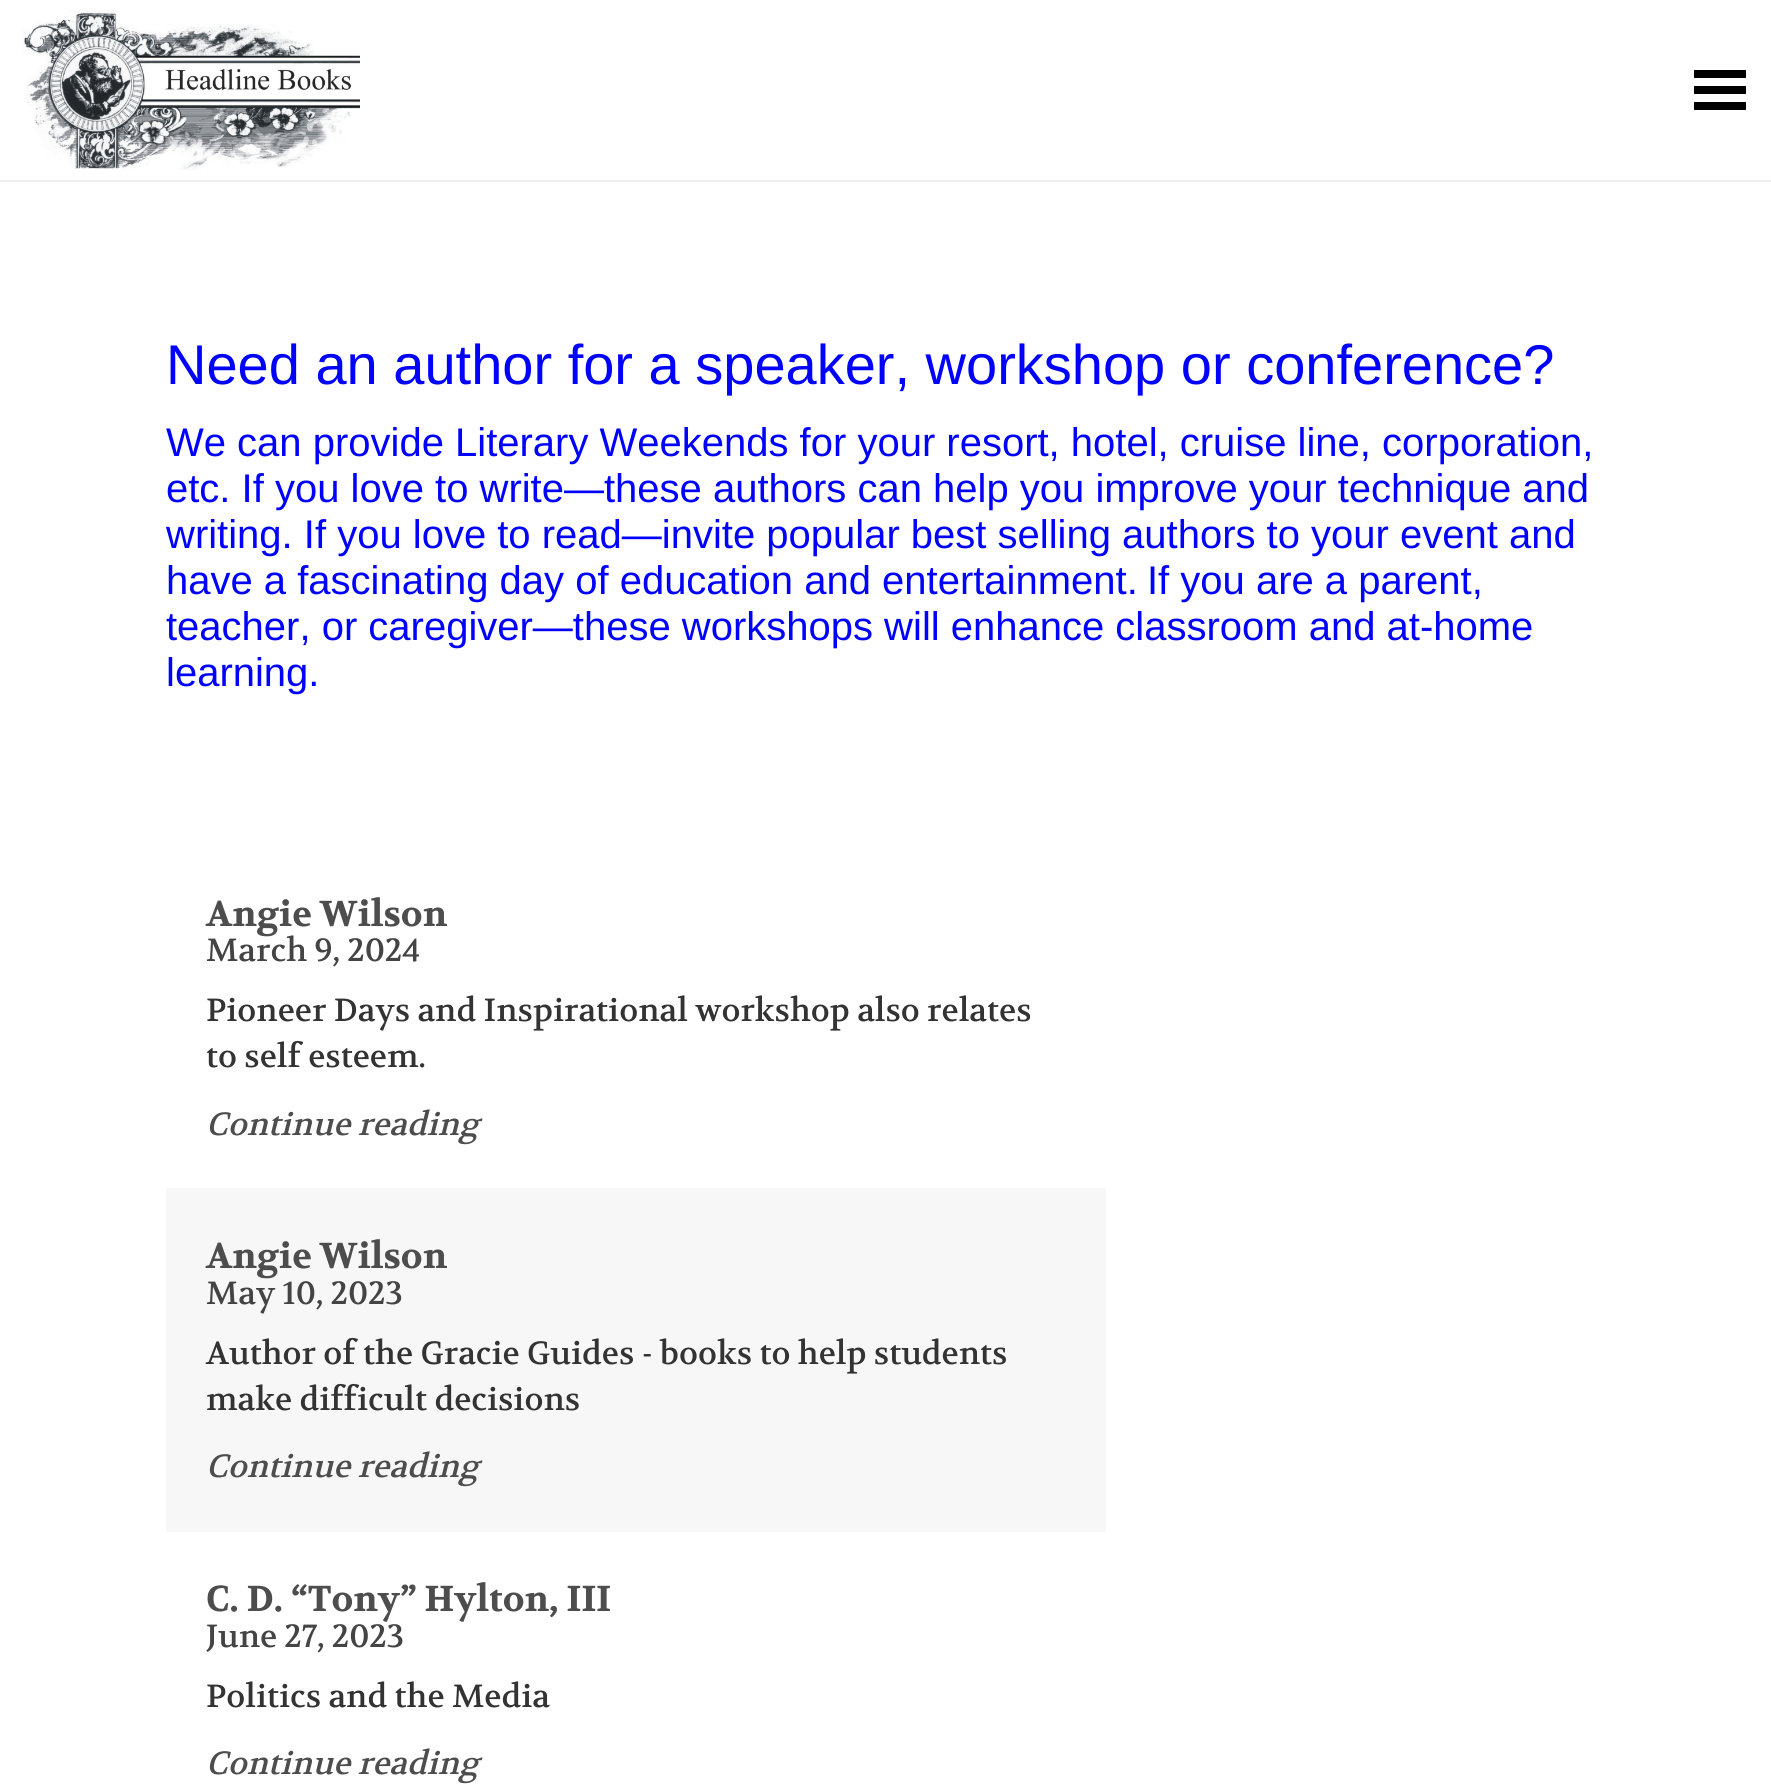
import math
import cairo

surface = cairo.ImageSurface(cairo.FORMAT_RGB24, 1771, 1789)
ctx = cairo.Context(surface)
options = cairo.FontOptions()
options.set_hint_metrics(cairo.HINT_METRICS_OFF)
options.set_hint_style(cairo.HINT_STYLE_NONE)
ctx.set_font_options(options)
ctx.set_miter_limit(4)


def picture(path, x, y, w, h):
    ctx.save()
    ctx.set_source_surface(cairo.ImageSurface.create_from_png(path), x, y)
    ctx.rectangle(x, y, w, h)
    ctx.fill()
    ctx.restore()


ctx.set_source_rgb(1, 1, 1)
ctx.paint()
ctx.set_source_rgb(0.933, 0.933, 0.933)
ctx.rectangle(0, 180, 1771, 2)
ctx.fill()
picture("img1.png", 22, 10, 338, 160)
ctx.set_source_rgb(0, 0, 0)
ctx.new_path()
ctx.move_to(1746, 78)
ctx.line_to(1694, 78)
ctx.line_to(1694, 70)
ctx.line_to(1746, 70)
ctx.close_path()
ctx.move_to(1746, 86)
ctx.line_to(1694, 86)
ctx.line_to(1694, 94)
ctx.line_to(1746, 94)
ctx.close_path()
ctx.move_to(1746, 102)
ctx.line_to(1694, 102)
ctx.line_to(1694, 110)
ctx.line_to(1746, 110)
ctx.close_path()
ctx.fill()
ctx.select_font_face("Liberation Sans")
ctx.set_font_size(56)
ctx.set_source_rgb(0, 0, 1)
ctx.move_to(166, 384)
ctx.show_text("Need an author for a speaker, workshop or conference?")
ctx.set_font_size(40)
ctx.move_to(166, 456)
ctx.show_text("We can provide Literary Weekends for your resort, hotel, cruise line, corporation,")
ctx.move_to(166, 502)
ctx.show_text("etc. If you love to write—these authors can help you improve your technique and")
ctx.move_to(166, 548)
ctx.show_text("writing. If you love to read—invite popular best selling authors to your event and")
ctx.move_to(166, 594)
ctx.show_text("have a fascinating day of education and entertainment.")
ctx.move_to(1147, 594)
ctx.show_text("If you are a parent,")
ctx.move_to(166, 640)
ctx.show_text("teacher, or caregiver—these workshops will enhance classroom and at-home")
ctx.move_to(166, 686)
ctx.show_text("learning.")
ctx.select_font_face("Volkhov", cairo.FONT_SLANT_NORMAL, cairo.FONT_WEIGHT_BOLD)
ctx.set_font_size(36)
ctx.set_source_rgb(0.302, 0.302, 0.302)
ctx.move_to(206, 926)
ctx.show_text("Angie Wilson")
ctx.select_font_face("Volkhov")
ctx.set_font_size(32)
ctx.set_source_rgb(0.267, 0.267, 0.267)
ctx.move_to(206, 961)
ctx.show_text("March 9, 2024")
ctx.set_source_rgb(0.2, 0.2, 0.2)
ctx.move_to(206, 1021)
ctx.show_text("Pioneer Days and Inspirational workshop also relates")
ctx.move_to(206, 1067)
ctx.show_text("to self esteem.")
ctx.select_font_face("Volkhov", cairo.FONT_SLANT_ITALIC)
ctx.set_source_rgb(0.302, 0.302, 0.302)
ctx.move_to(206, 1135)
ctx.show_text("Continue reading")
ctx.set_source_rgb(0.965, 0.965, 0.965)
ctx.rectangle(166, 1188, 940, 344)
ctx.fill()
ctx.select_font_face("Volkhov", cairo.FONT_SLANT_NORMAL, cairo.FONT_WEIGHT_BOLD)
ctx.set_font_size(36)
ctx.set_source_rgb(0.302, 0.302, 0.302)
ctx.move_to(206, 1268)
ctx.show_text("Angie Wilson")
ctx.select_font_face("Volkhov")
ctx.set_font_size(32)
ctx.set_source_rgb(0.267, 0.267, 0.267)
ctx.move_to(206, 1304)
ctx.show_text("May 10, 2023")
ctx.set_source_rgb(0.2, 0.2, 0.2)
ctx.move_to(206, 1364)
ctx.show_text("Author of the Gracie Guides - books to help students")
ctx.move_to(206, 1410)
ctx.show_text("make difficult decisions")
ctx.select_font_face("Volkhov", cairo.FONT_SLANT_ITALIC)
ctx.set_source_rgb(0.302, 0.302, 0.302)
ctx.move_to(206, 1477)
ctx.show_text("Continue reading")
ctx.select_font_face("Volkhov", cairo.FONT_SLANT_NORMAL, cairo.FONT_WEIGHT_BOLD)
ctx.set_font_size(36)
ctx.move_to(206, 1611)
ctx.show_text("C. D. “Tony” Hylton, III")
ctx.select_font_face("Volkhov")
ctx.set_font_size(32)
ctx.set_source_rgb(0.267, 0.267, 0.267)
ctx.move_to(206, 1647)
ctx.show_text("June 27, 2023")
ctx.set_source_rgb(0.2, 0.2, 0.2)
ctx.move_to(206, 1707)
ctx.show_text("Politics and the Media")
ctx.select_font_face("Volkhov", cairo.FONT_SLANT_ITALIC)
ctx.set_source_rgb(0.302, 0.302, 0.302)
ctx.move_to(206, 1774)
ctx.show_text("Continue reading")
surface.write_to_png("page.png")
